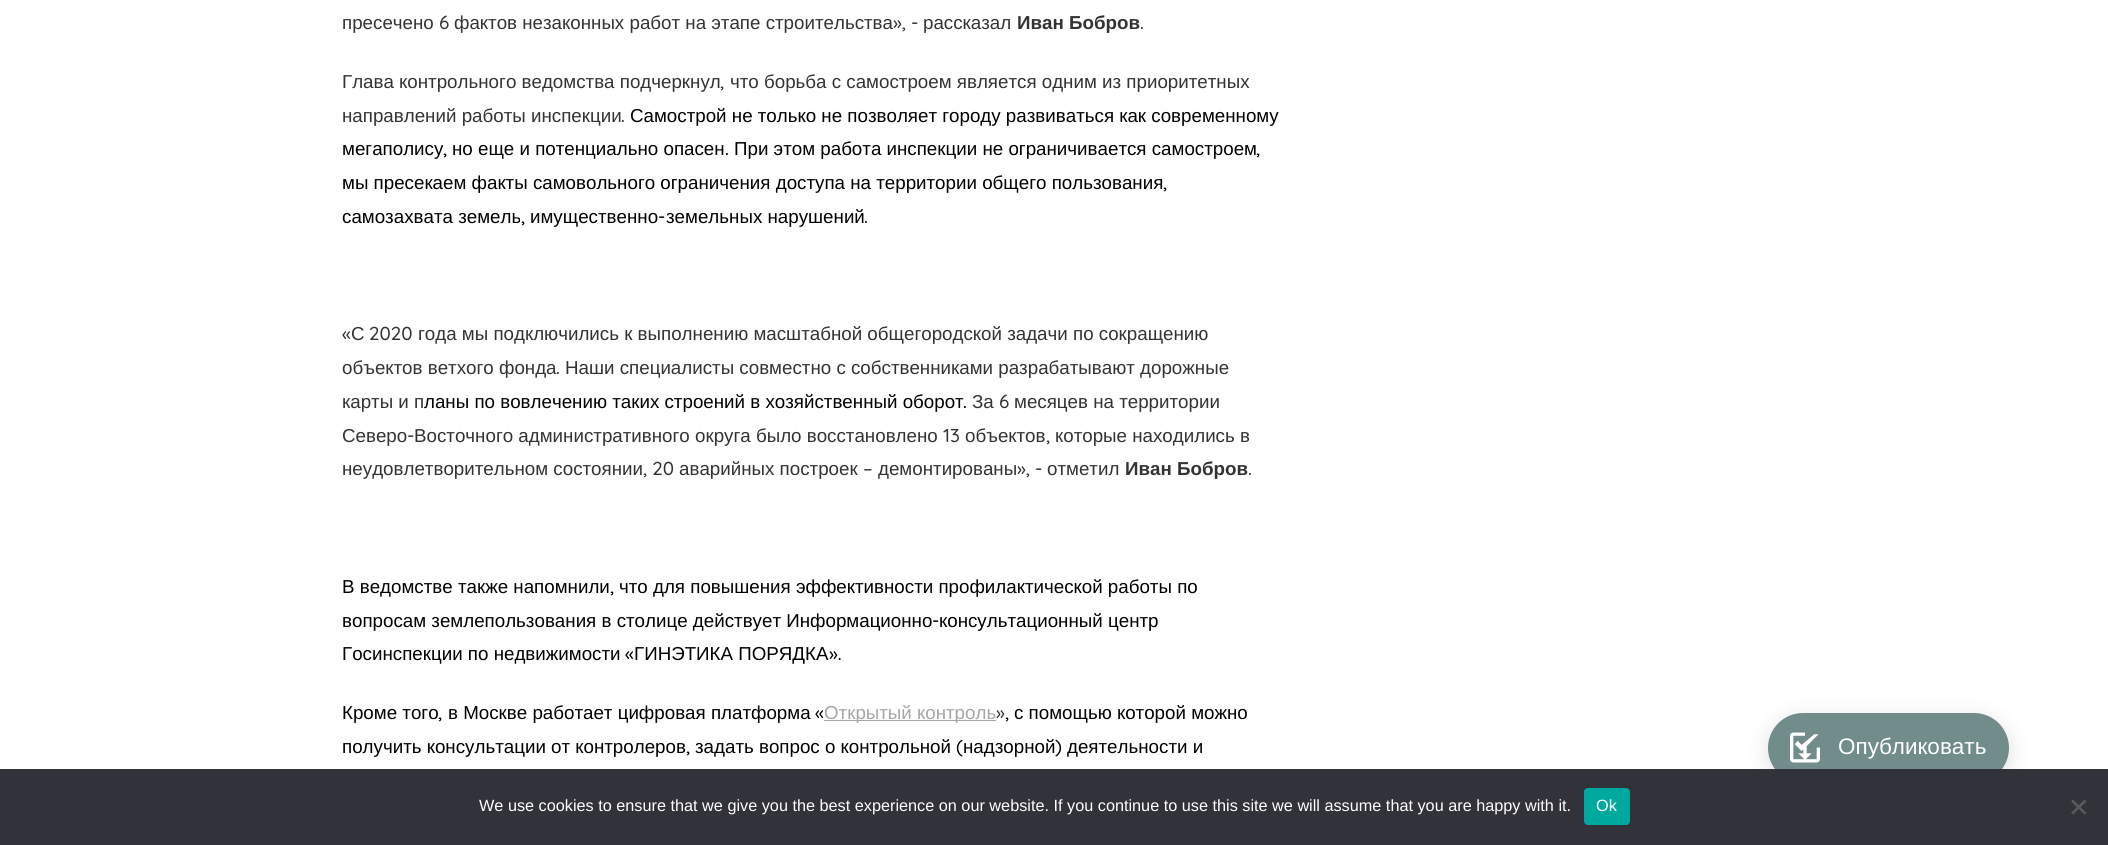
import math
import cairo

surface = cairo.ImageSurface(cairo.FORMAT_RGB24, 2108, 845)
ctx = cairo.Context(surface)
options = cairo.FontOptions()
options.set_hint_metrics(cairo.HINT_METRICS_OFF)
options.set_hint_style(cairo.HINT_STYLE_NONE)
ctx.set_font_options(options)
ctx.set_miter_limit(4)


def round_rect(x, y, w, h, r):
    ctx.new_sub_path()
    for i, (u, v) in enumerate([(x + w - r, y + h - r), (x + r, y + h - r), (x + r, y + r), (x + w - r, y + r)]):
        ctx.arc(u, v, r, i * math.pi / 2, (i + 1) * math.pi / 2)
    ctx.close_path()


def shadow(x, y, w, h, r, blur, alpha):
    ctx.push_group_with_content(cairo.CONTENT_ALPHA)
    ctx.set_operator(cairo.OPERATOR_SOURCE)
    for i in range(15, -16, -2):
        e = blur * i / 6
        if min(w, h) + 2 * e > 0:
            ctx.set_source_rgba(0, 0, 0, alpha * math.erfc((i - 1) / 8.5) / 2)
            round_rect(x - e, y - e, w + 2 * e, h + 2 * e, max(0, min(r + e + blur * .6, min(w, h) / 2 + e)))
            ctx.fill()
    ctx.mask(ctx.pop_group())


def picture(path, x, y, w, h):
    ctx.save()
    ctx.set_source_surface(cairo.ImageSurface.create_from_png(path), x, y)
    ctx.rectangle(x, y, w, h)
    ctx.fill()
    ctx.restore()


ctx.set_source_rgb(1, 1, 1)
ctx.paint()
ctx.select_font_face("Liberation Sans")
ctx.set_font_size(18.75)
ctx.set_source_rgb(0.2, 0.2, 0.2)
ctx.move_to(342, 29)
ctx.show_text("пресечено")
ctx.select_font_face("Quicksand Medium")
ctx.move_to(439, 29)
ctx.show_text("6")
ctx.select_font_face("Liberation Sans")
ctx.move_to(454, 29)
ctx.show_text("фактов незаконных работ на этапе строительства")
ctx.select_font_face("Quicksand Medium")
ctx.move_to(893, 29)
ctx.show_text("», -")
ctx.select_font_face("Liberation Sans")
ctx.move_to(923, 29)
ctx.show_text("рассказал")
ctx.select_font_face("Liberation Sans", cairo.FONT_SLANT_NORMAL, cairo.FONT_WEIGHT_BOLD)
ctx.move_to(1017, 29)
ctx.show_text("Иван Бобров")
ctx.select_font_face("Quicksand Medium")
ctx.move_to(1140, 29)
ctx.show_text(".")
ctx.select_font_face("Liberation Sans")
ctx.move_to(342, 88)
ctx.show_text("Глава контрольного ведомства подчеркнул")
ctx.select_font_face("Quicksand Medium")
ctx.move_to(720, 88)
ctx.show_text(",")
ctx.select_font_face("Liberation Sans")
ctx.move_to(730, 88)
ctx.show_text("что борьба с самостроем является одним из приоритетных")
ctx.move_to(342, 122)
ctx.show_text("направлений работы инспекции")
ctx.select_font_face("Quicksand Medium")
ctx.move_to(621, 122)
ctx.show_text(".")
ctx.select_font_face("Liberation Sans")
ctx.set_source_rgb(0, 0, 0)
ctx.move_to(630, 122)
ctx.show_text("Самострой не только не позволяет городу развиваться как современному")
ctx.move_to(342, 155)
ctx.show_text("мегаполису")
ctx.select_font_face("Quicksand Medium")
ctx.move_to(443, 155)
ctx.show_text(",")
ctx.select_font_face("Liberation Sans")
ctx.move_to(452, 155)
ctx.show_text("но еще и потенциально опасен")
ctx.select_font_face("Quicksand Medium")
ctx.move_to(725, 155)
ctx.show_text(".")
ctx.select_font_face("Liberation Sans")
ctx.move_to(734, 155)
ctx.show_text("При этом работа инспекции не ограничивается самостроем")
ctx.select_font_face("Quicksand Medium")
ctx.move_to(1256, 155)
ctx.show_text(",")
ctx.select_font_face("Liberation Sans")
ctx.move_to(342, 189)
ctx.show_text("мы пресекаем факты самовольного ограничения доступа на территории общего пользования")
ctx.select_font_face("Quicksand Medium")
ctx.move_to(1163, 189)
ctx.show_text(",")
ctx.select_font_face("Liberation Sans")
ctx.move_to(342, 223)
ctx.show_text("самозахвата земель")
ctx.move_to(530, 223)
ctx.show_text("имущественно")
ctx.select_font_face("Quicksand Medium")
ctx.move_to(658, 223)
ctx.show_text("-")
ctx.select_font_face("Liberation Sans")
ctx.move_to(666, 223)
ctx.show_text("земельных нарушений")
ctx.select_font_face("Quicksand Medium")
ctx.move_to(521, 223)
ctx.show_text(",")
ctx.move_to(864, 223)
ctx.show_text(".")
ctx.set_source_rgb(0.2, 0.2, 0.2)
ctx.move_to(342, 340)
ctx.show_text("«")
ctx.select_font_face("Liberation Sans")
ctx.move_to(351, 340)
ctx.show_text("С")
ctx.select_font_face("Quicksand Medium")
ctx.move_to(369, 340)
ctx.show_text("2020")
ctx.select_font_face("Liberation Sans")
ctx.move_to(418, 340)
ctx.show_text("года мы подключились к выполнению масштабной общегородской задачи по сокращению")
ctx.move_to(342, 374)
ctx.show_text("объектов ветхого фонда")
ctx.select_font_face("Quicksand Medium")
ctx.move_to(556, 374)
ctx.show_text(".")
ctx.select_font_face("Liberation Sans")
ctx.move_to(565, 374)
ctx.show_text("Наши специалисты совместно с собственниками разрабатывают дорожные")
ctx.move_to(342, 408)
ctx.show_text("карты и п")
ctx.set_source_rgb(0, 0, 0)
ctx.move_to(424, 408)
ctx.show_text("ланы по вовлечению таких строений в хозяйственный оборот")
ctx.select_font_face("Quicksand Medium")
ctx.move_to(963, 408)
ctx.show_text(".")
ctx.select_font_face("Liberation Sans")
ctx.set_source_rgb(0.2, 0.2, 0.2)
ctx.move_to(972, 408)
ctx.show_text("За")
ctx.select_font_face("Quicksand Medium")
ctx.move_to(999, 408)
ctx.show_text("6")
ctx.select_font_face("Liberation Sans")
ctx.move_to(1014, 408)
ctx.show_text("месяцев на территории")
ctx.move_to(342, 442)
ctx.show_text("Северо")
ctx.select_font_face("Quicksand Medium")
ctx.move_to(407, 442)
ctx.show_text("-")
ctx.select_font_face("Liberation Sans")
ctx.move_to(414, 442)
ctx.show_text("Восточного административного округа было восстановлено")
ctx.select_font_face("Quicksand Medium")
ctx.move_to(943, 442)
ctx.show_text("13")
ctx.select_font_face("Liberation Sans")
ctx.move_to(965, 442)
ctx.show_text("объектов")
ctx.move_to(1055, 442)
ctx.show_text("которые находились в")
ctx.select_font_face("Quicksand Medium")
ctx.move_to(1046, 442)
ctx.show_text(",")
ctx.select_font_face("Liberation Sans")
ctx.move_to(342, 475)
ctx.show_text("неудовлетворительном состоянии")
ctx.select_font_face("Quicksand Medium")
ctx.move_to(643, 475)
ctx.show_text(", 20")
ctx.select_font_face("Liberation Sans")
ctx.move_to(679, 475)
ctx.show_text("аварийных построек")
ctx.select_font_face("Quicksand Medium")
ctx.move_to(863, 475)
ctx.show_text("–")
ctx.select_font_face("Liberation Sans")
ctx.move_to(878, 475)
ctx.show_text("демонтированы")
ctx.select_font_face("Quicksand Medium")
ctx.move_to(1017, 475)
ctx.show_text("», -")
ctx.select_font_face("Liberation Sans")
ctx.move_to(1047, 475)
ctx.show_text("отметил")
ctx.select_font_face("Liberation Sans", cairo.FONT_SLANT_NORMAL, cairo.FONT_WEIGHT_BOLD)
ctx.move_to(1125, 475)
ctx.show_text("Иван Бобров")
ctx.select_font_face("Quicksand Medium")
ctx.move_to(1248, 475)
ctx.show_text(".")
ctx.select_font_face("Liberation Sans")
ctx.set_source_rgb(0, 0, 0)
ctx.move_to(342, 593)
ctx.show_text("В ведомстве также напомнили")
ctx.select_font_face("Quicksand Medium")
ctx.move_to(610, 593)
ctx.show_text(",")
ctx.select_font_face("Liberation Sans")
ctx.move_to(619, 593)
ctx.show_text("что для повышения эффективности профилактической работы по")
ctx.move_to(342, 627)
ctx.show_text("вопросам землепользования в столице действует Информационно")
ctx.select_font_face("Quicksand Medium")
ctx.move_to(932, 627)
ctx.show_text("-")
ctx.select_font_face("Liberation Sans")
ctx.move_to(939, 627)
ctx.show_text("консультационный центр")
ctx.move_to(342, 660)
ctx.show_text("Госинспекции по недвижимости")
ctx.select_font_face("Quicksand Medium")
ctx.move_to(625, 660)
ctx.show_text("«")
ctx.select_font_face("Liberation Sans")
ctx.move_to(634, 660)
ctx.show_text("ГИНЭТИКА ПОРЯДКА")
ctx.select_font_face("Quicksand Medium")
ctx.move_to(829, 660)
ctx.show_text("».")
ctx.select_font_face("Liberation Sans")
ctx.move_to(342, 719)
ctx.show_text("Кроме того")
ctx.move_to(448, 719)
ctx.show_text("в Москве работает цифровая платформа")
ctx.select_font_face("Quicksand Medium")
ctx.move_to(815, 719)
ctx.show_text("«")
ctx.set_source_rgb(0.651, 0.651, 0.651)
ctx.rectangle(824, 720, 172, 1)
ctx.fill()
ctx.select_font_face("Liberation Sans")
ctx.move_to(824, 719)
ctx.show_text("Открытый контроль")
ctx.select_font_face("Quicksand Medium")
ctx.set_source_rgb(0.2, 0.2, 0.2)
ctx.move_to(996, 719)
ctx.show_text("»")
ctx.select_font_face("Liberation Sans")
ctx.set_source_rgb(0, 0, 0)
ctx.move_to(1014, 719)
ctx.show_text("с помощью которой можно")
ctx.select_font_face("Quicksand Medium")
ctx.move_to(438, 719)
ctx.show_text(",")
ctx.move_to(1005, 719)
ctx.show_text(",")
ctx.select_font_face("Liberation Sans")
ctx.move_to(342, 753)
ctx.show_text("получить консультации от контролеров")
ctx.select_font_face("Quicksand Medium")
ctx.move_to(686, 753)
ctx.show_text(",")
ctx.select_font_face("Liberation Sans")
ctx.move_to(695, 753)
ctx.show_text("задать вопрос о контрольной")
ctx.select_font_face("Quicksand Medium")
ctx.move_to(956, 753)
ctx.show_text("(")
ctx.select_font_face("Liberation Sans")
ctx.move_to(963, 753)
ctx.show_text("надзорной")
ctx.select_font_face("Quicksand Medium")
ctx.move_to(1055, 753)
ctx.show_text(")")
ctx.select_font_face("Liberation Sans")
ctx.move_to(1067, 753)
ctx.show_text("деятельности и")
ctx.set_source_rgb(0, 0, 0)
shadow(1768, 718, 241, 70, 35, 11, 0.12)
ctx.set_source_rgb(0.447, 0.545, 0.545)
round_rect(1768, 713, 241, 70, 35)
ctx.fill()
picture("img1.png", 1790, 732, 30, 31)
ctx.set_font_size(22.5)
ctx.set_source_rgb(1, 1, 1)
ctx.move_to(1838, 754)
ctx.show_text("Опубликовать")
ctx.set_source_rgb(0.196, 0.196, 0.227)
ctx.rectangle(0, 769, 2108, 76)
ctx.fill()
ctx.set_font_size(16.25)
ctx.set_source_rgb(1, 1, 1)
ctx.move_to(479, 811)
ctx.show_text("We use cookies to ensure that we give you the best experience on our website. If you continue to use this site we will assume that you are happy with it.")
ctx.set_source_rgb(0, 0.663, 0.616)
round_rect(1584, 788, 46, 37, 4)
ctx.fill()
ctx.set_source_rgb(1, 1, 1)
ctx.move_to(1596, 811)
ctx.show_text("Ok")
ctx.set_source_rgb(0.349, 0.349, 0.365)
ctx.new_path()
ctx.move_to(2084.5, 799.5)
ctx.line_to(2086.5, 801.5)
ctx.line_to(2073, 814.5)
ctx.line_to(2071, 813)
ctx.close_path()
ctx.fill()
ctx.new_path()
ctx.move_to(2071, 801.5)
ctx.line_to(2073, 799.5)
ctx.line_to(2086.5, 813)
ctx.line_to(2084.5, 814.5)
ctx.close_path()
ctx.fill()
surface.write_to_png("page.png")
